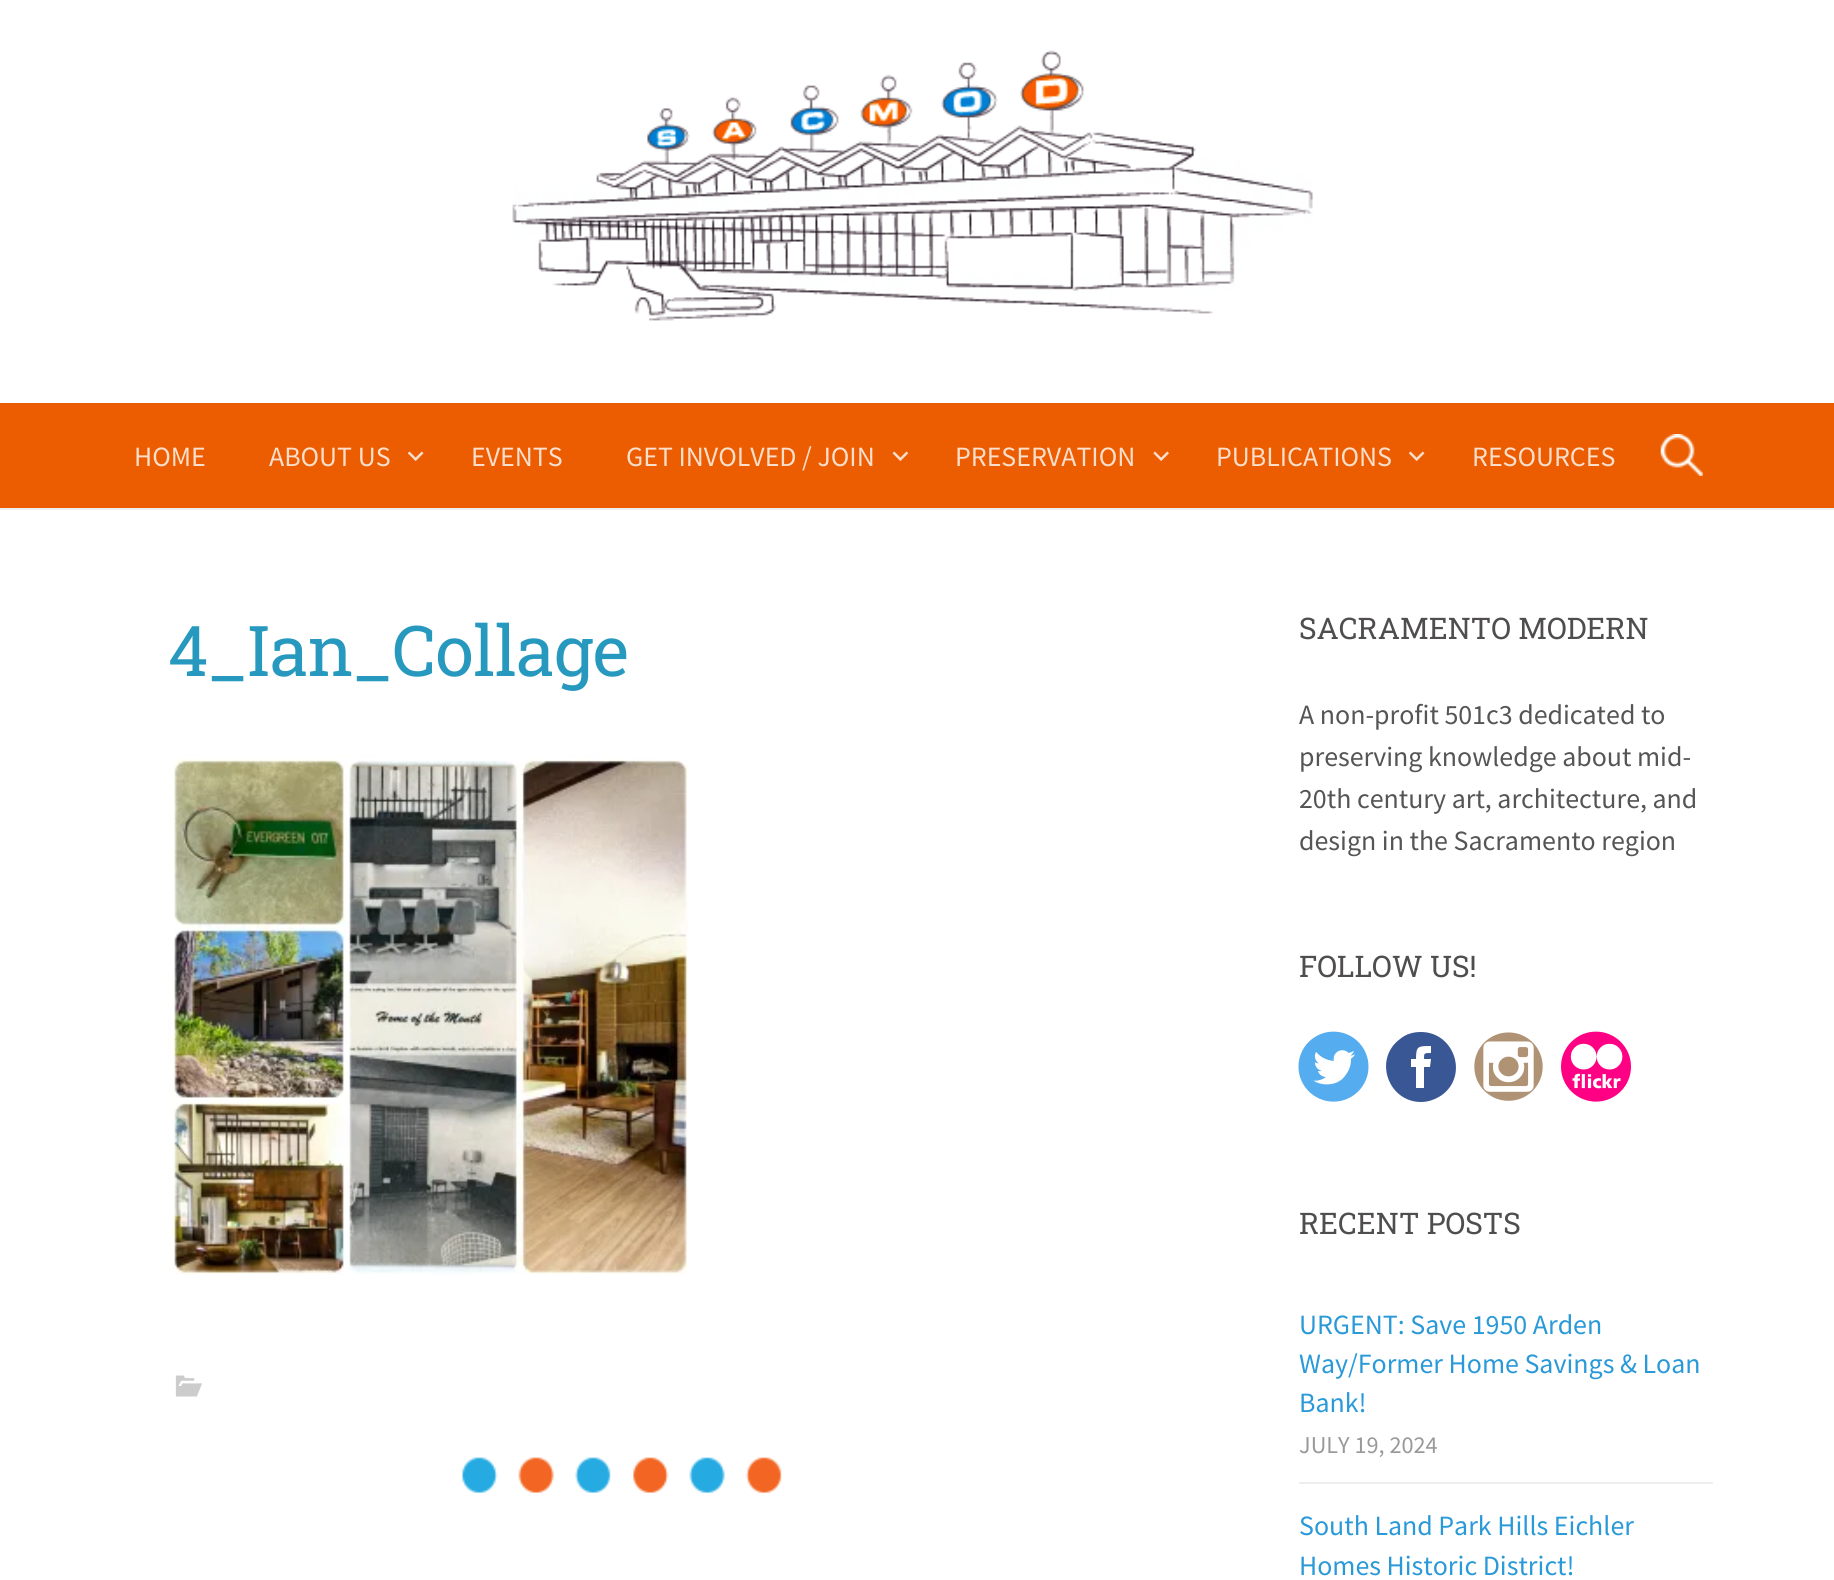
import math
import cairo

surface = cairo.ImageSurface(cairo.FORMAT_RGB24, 1834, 1580)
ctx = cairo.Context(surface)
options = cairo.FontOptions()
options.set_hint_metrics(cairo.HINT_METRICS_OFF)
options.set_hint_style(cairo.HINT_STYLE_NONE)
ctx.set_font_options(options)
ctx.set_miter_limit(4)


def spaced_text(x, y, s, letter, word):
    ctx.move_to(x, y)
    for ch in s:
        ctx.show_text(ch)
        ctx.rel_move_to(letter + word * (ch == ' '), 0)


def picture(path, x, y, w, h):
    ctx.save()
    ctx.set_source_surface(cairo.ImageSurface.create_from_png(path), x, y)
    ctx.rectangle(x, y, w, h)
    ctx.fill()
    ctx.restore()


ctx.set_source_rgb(1, 1, 1)
ctx.paint()
ctx.set_source_rgb(0.933, 0.933, 0.933)
ctx.rectangle(0, 508, 1834, 2)
ctx.fill()
picture("img1.png", 512, 50, 801, 271)
ctx.set_source_rgb(0.918, 0.365, 0)
ctx.rectangle(0, 403, 1834, 105)
ctx.fill()
ctx.select_font_face("Source Sans Pro")
ctx.set_font_size(27.9)
ctx.set_source_rgb(0.984, 0.875, 0.8)
ctx.move_to(134, 466)
ctx.show_text("HOME")
ctx.move_to(269, 466)
ctx.show_text("ABOUT US")
picture("img2.png", 407, 451, 17, 10)
ctx.move_to(471, 466)
ctx.show_text("EVENTS")
ctx.move_to(626, 466)
ctx.show_text("GET INVOLVED / JOIN")
picture("img3.png", 892, 451, 17, 10)
ctx.move_to(955, 466)
ctx.show_text("PRESERVATION")
picture("img4.png", 1153, 451, 16, 10)
ctx.move_to(1216, 466)
ctx.show_text("PUBLICATIONS")
picture("img2.png", 1408, 451, 17, 10)
ctx.move_to(1472, 466)
ctx.show_text("RESOURCES")
picture("img5.png", 1660, 434, 43, 42)
picture("img6.png", 462, 1457, 320, 36)
ctx.select_font_face("Roboto Slab")
ctx.set_font_size(70)
ctx.set_source_rgb(0.153, 0.6, 0.749)
spaced_text(168, 676, "4_Ian_Collage", -0.75, 0)
picture("img7.png", 168, 754, 520, 521)
picture("img8.png", 175, 1375, 27, 22)
ctx.set_font_size(29.75)
ctx.set_source_rgb(0.31, 0.302, 0.306)
ctx.move_to(1299, 639)
ctx.show_text("SACRAMENTO MODERN")
ctx.select_font_face("Source Sans Pro")
ctx.set_font_size(27.9)
ctx.set_source_rgb(0.333, 0.333, 0.333)
ctx.move_to(1299, 724)
ctx.show_text("A non-profit 501c3 dedicated to")
ctx.move_to(1299, 766)
ctx.show_text("preserving knowledge about mid-")
ctx.move_to(1299, 808)
ctx.show_text("20th century art, architecture, and")
ctx.move_to(1299, 850)
ctx.show_text("design in the Sacramento region")
ctx.select_font_face("Roboto Slab")
ctx.set_font_size(29.75)
ctx.set_source_rgb(0.31, 0.302, 0.306)
ctx.move_to(1299, 977)
ctx.show_text("FOLLOW US!")
picture("img9.png", 1298, 1031, 71, 71)
ctx.set_source_rgb(0.227, 0.341, 0.584)
ctx.new_path()
ctx.move_to(1421, 1032)
ctx.curve_to(1413, 1032, 1406, 1034, 1400, 1039)
ctx.curve_to(1373, 1059, 1388, 1102, 1421, 1102)
ctx.curve_to(1429, 1102, 1436, 1099, 1442, 1095)
ctx.curve_to(1469, 1075, 1454, 1032, 1421, 1032)
ctx.close_path()
ctx.move_to(1430, 1067)
ctx.line_to(1424, 1067)
ctx.line_to(1424, 1088)
ctx.line_to(1416, 1088)
ctx.line_to(1416, 1067)
ctx.line_to(1411, 1067)
ctx.line_to(1411, 1059)
ctx.line_to(1416, 1059)
ctx.curve_to(1416, 1046, 1418, 1046, 1431, 1046)
ctx.line_to(1431, 1053)
ctx.curve_to(1424, 1053, 1424, 1053, 1424, 1059)
ctx.line_to(1431, 1059)
ctx.close_path()
ctx.fill()
picture("img10.png", 1474, 1032, 69, 69)
picture("img11.png", 1561, 1031, 70, 71)
ctx.set_source_rgb(0.31, 0.302, 0.306)
ctx.move_to(1299, 1234)
ctx.show_text("RECENT POSTS")
ctx.select_font_face("Source Sans Pro")
ctx.set_font_size(27.9)
ctx.set_source_rgb(0.165, 0.6, 0.847)
ctx.move_to(1299, 1334)
ctx.show_text("URGENT: Save 1950 Arden")
ctx.move_to(1299, 1373)
ctx.show_text("Way/Former Home Savings & Loan")
ctx.move_to(1299, 1412)
ctx.show_text("Bank!")
ctx.set_font_size(24.25)
ctx.set_source_rgb(0.6, 0.6, 0.6)
ctx.move_to(1299, 1453)
ctx.show_text("JULY 19, 2024")
ctx.set_source_rgb(0.933, 0.933, 0.933)
ctx.rectangle(1299, 1482, 414, 2)
ctx.fill()
ctx.set_font_size(27.9)
ctx.set_source_rgb(0.165, 0.6, 0.847)
ctx.move_to(1299, 1535)
ctx.show_text("South Land Park Hills Eichler")
ctx.move_to(1299, 1575)
ctx.show_text("Homes Historic District!")
surface.write_to_png("page.png")
